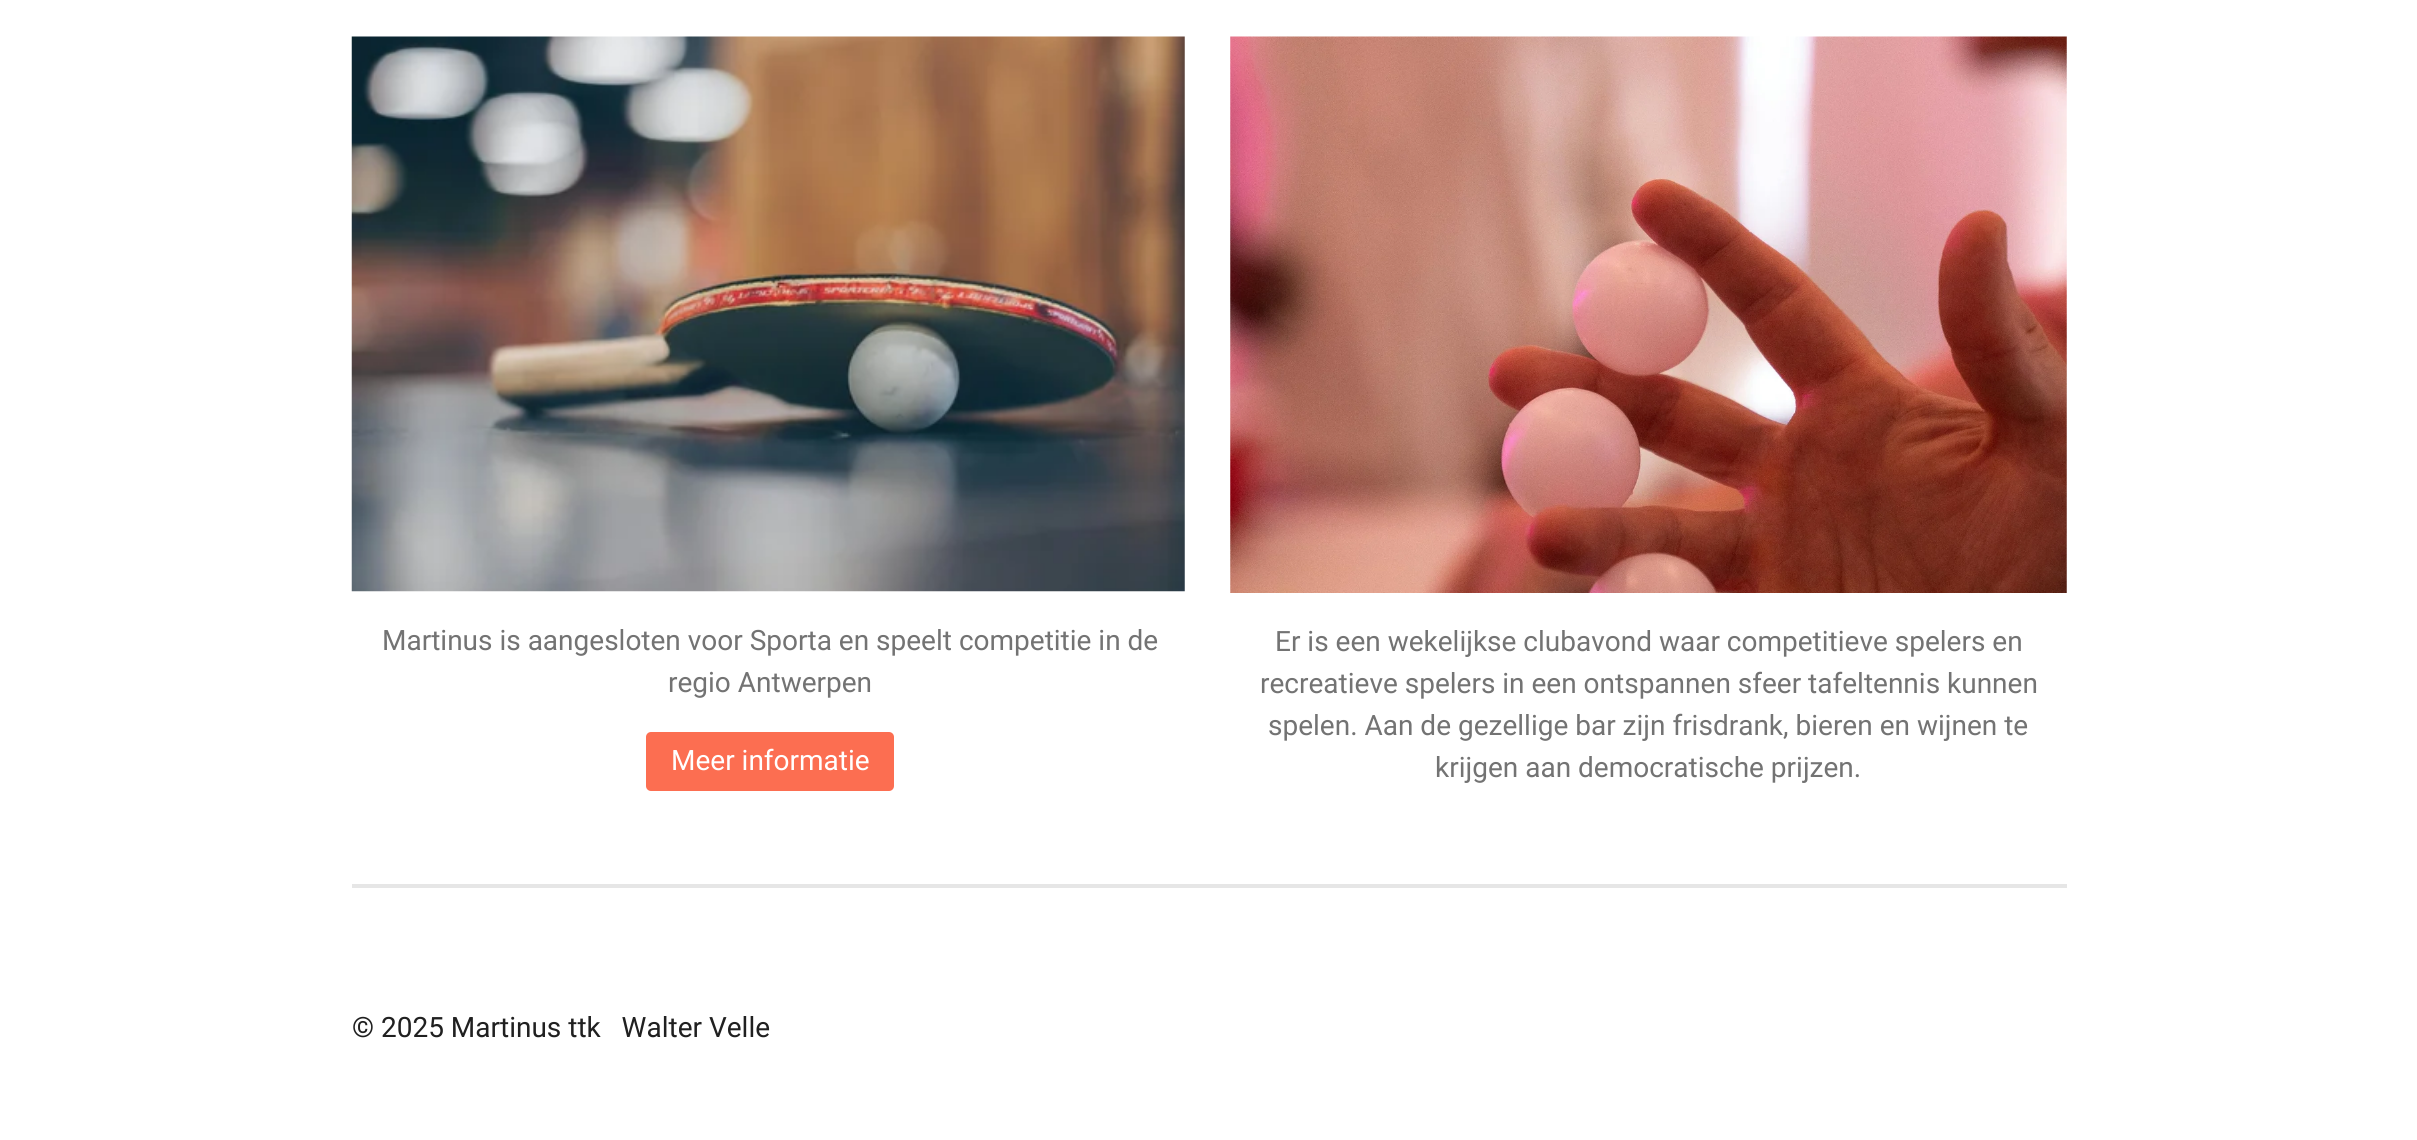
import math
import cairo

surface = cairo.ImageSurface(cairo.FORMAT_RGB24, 2417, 1140)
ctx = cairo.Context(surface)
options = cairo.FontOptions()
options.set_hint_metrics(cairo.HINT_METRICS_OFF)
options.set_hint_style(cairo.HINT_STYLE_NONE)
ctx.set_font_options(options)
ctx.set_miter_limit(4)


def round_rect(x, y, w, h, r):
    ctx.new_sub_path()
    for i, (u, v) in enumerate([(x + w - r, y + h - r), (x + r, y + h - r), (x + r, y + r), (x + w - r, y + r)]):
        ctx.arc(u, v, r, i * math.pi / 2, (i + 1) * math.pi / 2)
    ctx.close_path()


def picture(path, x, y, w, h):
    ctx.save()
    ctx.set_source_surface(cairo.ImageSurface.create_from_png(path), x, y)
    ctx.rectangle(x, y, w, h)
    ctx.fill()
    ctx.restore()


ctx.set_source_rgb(1, 1, 1)
ctx.paint()
picture("img1.png", 351, 36, 834, 556)
ctx.select_font_face("Roboto")
ctx.set_font_size(28)
ctx.set_source_rgb(0.451, 0.451, 0.451)
ctx.move_to(382, 650)
ctx.show_text("Martinus is aangesloten voor Sporta en speelt competitie in de")
ctx.move_to(668, 692)
ctx.show_text("regio Antwerpen")
ctx.set_source_rgb(0.988, 0.431, 0.318)
round_rect(646, 732, 248, 59, 5)
ctx.fill()
ctx.set_source_rgb(1, 1, 1)
ctx.move_to(671, 770)
ctx.show_text("Meer informatie")
picture("img2.png", 1230, 36, 837, 557)
ctx.set_source_rgb(0.451, 0.451, 0.451)
ctx.move_to(1275, 651)
ctx.show_text("Er is een wekelijkse clubavond waar competitieve spelers en")
ctx.move_to(1260, 693)
ctx.show_text("recreatieve spelers in een ontspannen sfeer tafeltennis kunnen")
ctx.move_to(1268, 735)
ctx.show_text("spelen. Aan de gezellige bar zijn frisdrank, bieren en wijnen te")
ctx.move_to(1435, 777)
ctx.show_text("krijgen aan democratische prijzen.")
ctx.set_source_rgb(0.902, 0.902, 0.902)
ctx.rectangle(352, 884, 1715, 4)
ctx.fill()
ctx.set_source_rgb(0.125, 0.125, 0.125)
ctx.move_to(352, 1037)
ctx.show_text("© 2025 Martinus ttk   Walter Velle")
surface.write_to_png("page.png")
